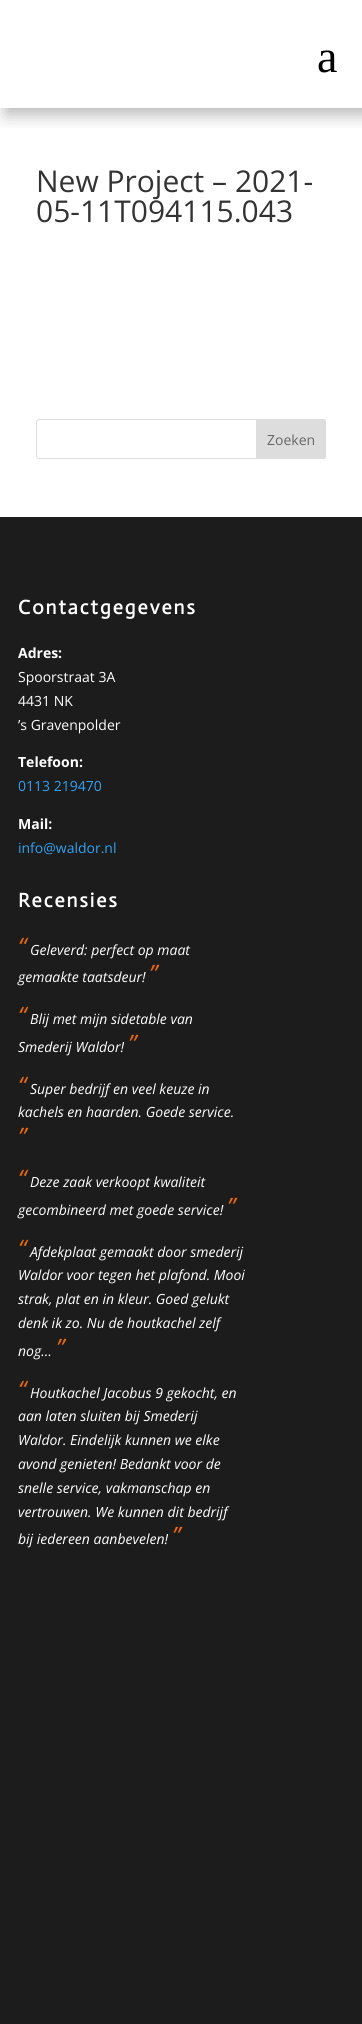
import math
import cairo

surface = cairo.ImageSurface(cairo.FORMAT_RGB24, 362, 2024)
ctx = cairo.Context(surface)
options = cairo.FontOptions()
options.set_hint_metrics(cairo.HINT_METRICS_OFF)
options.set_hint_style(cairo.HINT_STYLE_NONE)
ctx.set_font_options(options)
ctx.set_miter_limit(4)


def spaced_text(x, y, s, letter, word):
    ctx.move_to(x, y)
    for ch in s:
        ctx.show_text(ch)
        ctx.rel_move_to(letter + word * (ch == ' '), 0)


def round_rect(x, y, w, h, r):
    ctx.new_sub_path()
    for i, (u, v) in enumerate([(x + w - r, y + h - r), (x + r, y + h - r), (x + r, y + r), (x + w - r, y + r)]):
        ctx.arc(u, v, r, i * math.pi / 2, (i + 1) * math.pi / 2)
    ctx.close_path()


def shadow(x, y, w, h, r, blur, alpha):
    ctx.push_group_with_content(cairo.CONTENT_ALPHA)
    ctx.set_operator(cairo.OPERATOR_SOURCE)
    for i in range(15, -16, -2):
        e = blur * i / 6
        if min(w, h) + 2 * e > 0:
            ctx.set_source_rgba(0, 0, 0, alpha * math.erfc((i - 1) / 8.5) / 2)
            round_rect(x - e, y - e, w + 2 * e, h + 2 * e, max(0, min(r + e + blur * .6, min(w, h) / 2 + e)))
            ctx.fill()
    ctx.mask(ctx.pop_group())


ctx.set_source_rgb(1, 1, 1)
ctx.paint()
ctx.save()
ctx.rectangle(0, 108, 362, 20)
ctx.clip()
ctx.set_source_rgb(0, 0, 0)
shadow(6, 6, 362, 108, 0, 9, 0.3)
ctx.restore()
ctx.select_font_face("Liberation Serif")
ctx.set_font_size(46)
ctx.set_source_rgb(0, 0, 0)
ctx.move_to(317, 72)
ctx.show_text("a")
ctx.select_font_face("Open Sans")
ctx.set_font_size(30)
ctx.set_source_rgb(0.2, 0.2, 0.2)
ctx.move_to(36, 192)
ctx.show_text("New Project – 2021-")
ctx.move_to(36, 222)
ctx.show_text("05-11T094115.043")
round_rect(36.5, 419.5, 289, 39, 2.5)
ctx.set_source_rgb(0.867, 0.867, 0.867)
ctx.set_line_width(1)
ctx.stroke()
ctx.new_path()
ctx.move_to(256.5, 419.5)
ctx.line_to(323, 419.5)
ctx.curve_to(324.5, 419.5, 325.5, 420.5, 325.5, 422)
ctx.line_to(325.5, 456)
ctx.curve_to(325.5, 457.5, 324.5, 458.5, 323, 458.5)
ctx.line_to(256.5, 458.5)
ctx.close_path()
ctx.fill_preserve()
ctx.stroke()
ctx.set_font_size(14)
ctx.set_source_rgb(0.4, 0.4, 0.4)
ctx.move_to(267, 445)
ctx.show_text("Zoeken")
ctx.set_source_rgb(0.11, 0.11, 0.11)
ctx.rectangle(0, 517, 362, 1507)
ctx.fill()
ctx.select_font_face("Actor", cairo.FONT_SLANT_NORMAL, cairo.FONT_WEIGHT_BOLD)
ctx.set_font_size(20)
ctx.set_source_rgb(1, 1, 1)
spaced_text(18, 614, "Contactgegevens", 2, 0)
ctx.select_font_face("Open Sans", cairo.FONT_SLANT_NORMAL, cairo.FONT_WEIGHT_BOLD)
ctx.set_font_size(14)
ctx.move_to(18, 658)
ctx.show_text("Adres:")
ctx.select_font_face("Open Sans")
ctx.move_to(18, 682)
ctx.show_text("Spoorstraat 3A")
ctx.move_to(18, 706)
ctx.show_text("4431 NK")
ctx.move_to(18, 730)
ctx.show_text("’s Gravenpolder")
ctx.select_font_face("Open Sans", cairo.FONT_SLANT_NORMAL, cairo.FONT_WEIGHT_BOLD)
ctx.move_to(18, 767)
ctx.show_text("Telefoon:")
ctx.select_font_face("Open Sans")
ctx.set_source_rgb(0.18, 0.639, 0.949)
ctx.move_to(18, 791)
ctx.show_text("0113 219470")
ctx.select_font_face("Open Sans", cairo.FONT_SLANT_NORMAL, cairo.FONT_WEIGHT_BOLD)
ctx.set_source_rgb(1, 1, 1)
ctx.move_to(18, 829)
ctx.show_text("Mail:")
ctx.select_font_face("Open Sans")
ctx.set_source_rgb(0.18, 0.639, 0.949)
ctx.move_to(18, 853)
ctx.show_text("info@waldor.nl")
ctx.select_font_face("Actor", cairo.FONT_SLANT_NORMAL, cairo.FONT_WEIGHT_BOLD)
ctx.set_font_size(20)
ctx.set_source_rgb(1, 1, 1)
spaced_text(18, 907, "Recensies", 2, 0)
ctx.select_font_face("Open Sans", cairo.FONT_SLANT_ITALIC)
ctx.set_font_size(24)
ctx.set_source_rgb(0.937, 0.416, 0.012)
ctx.move_to(18, 955)
ctx.show_text("“")
ctx.set_font_size(14)
ctx.set_source_rgb(1, 1, 1)
ctx.move_to(30, 955)
ctx.show_text("Geleverd: perfect op maat")
ctx.set_font_size(24)
ctx.set_source_rgb(0.937, 0.416, 0.012)
ctx.move_to(149, 982)
ctx.show_text("”")
ctx.set_font_size(14)
ctx.set_source_rgb(1, 1, 1)
ctx.move_to(18, 982)
ctx.show_text("gemaakte taatsdeur!")
ctx.set_font_size(24)
ctx.set_source_rgb(0.937, 0.416, 0.012)
ctx.move_to(18, 1024)
ctx.show_text("“")
ctx.set_font_size(14)
ctx.set_source_rgb(1, 1, 1)
ctx.move_to(30, 1024)
ctx.show_text("Blij met mijn sidetable van")
ctx.set_font_size(24)
ctx.set_source_rgb(0.937, 0.416, 0.012)
ctx.move_to(128, 1052)
ctx.show_text("”")
ctx.set_font_size(14)
ctx.set_source_rgb(1, 1, 1)
ctx.move_to(18, 1052)
ctx.show_text("Smederij Waldor!")
ctx.set_font_size(24)
ctx.set_source_rgb(0.937, 0.416, 0.012)
ctx.move_to(18, 1094)
ctx.show_text("“")
ctx.set_font_size(14)
ctx.set_source_rgb(1, 1, 1)
ctx.move_to(30, 1094)
ctx.show_text("Super bedrijf en veel keuze in")
ctx.move_to(18, 1117)
ctx.show_text("kachels en haarden. Goede service.")
ctx.set_font_size(24)
ctx.set_source_rgb(0.937, 0.416, 0.012)
ctx.move_to(18, 1145)
ctx.show_text("”")
ctx.move_to(18, 1187)
ctx.show_text("“")
ctx.set_font_size(14)
ctx.set_source_rgb(1, 1, 1)
ctx.move_to(30, 1187)
ctx.show_text("Deze zaak verkoopt kwaliteit")
ctx.set_font_size(24)
ctx.set_source_rgb(0.937, 0.416, 0.012)
ctx.move_to(227, 1215)
ctx.show_text("”")
ctx.set_font_size(14)
ctx.set_source_rgb(1, 1, 1)
ctx.move_to(18, 1215)
ctx.show_text("gecombineerd met goede service!")
ctx.set_font_size(24)
ctx.set_source_rgb(0.937, 0.416, 0.012)
ctx.move_to(18, 1257)
ctx.show_text("“")
ctx.set_font_size(14)
ctx.set_source_rgb(1, 1, 1)
ctx.move_to(30, 1257)
ctx.show_text("Afdekplaat gemaakt door smederij")
ctx.move_to(18, 1280)
ctx.show_text("Waldor voor tegen het plafond. Mooi")
ctx.move_to(18, 1304)
ctx.show_text("strak, plat en in kleur. Goed gelukt")
ctx.move_to(18, 1328)
ctx.show_text("denk ik zo. Nu de houtkachel zelf")
ctx.set_font_size(24)
ctx.set_source_rgb(0.937, 0.416, 0.012)
ctx.move_to(56, 1356)
ctx.show_text("”")
ctx.set_font_size(14)
ctx.set_source_rgb(1, 1, 1)
ctx.move_to(18, 1356)
ctx.show_text("nog…")
ctx.set_font_size(24)
ctx.set_source_rgb(0.937, 0.416, 0.012)
ctx.move_to(18, 1398)
ctx.show_text("“")
ctx.set_font_size(14)
ctx.set_source_rgb(1, 1, 1)
ctx.move_to(30, 1398)
ctx.show_text("Houtkachel Jacobus 9 gekocht, en")
ctx.move_to(18, 1421)
ctx.show_text("aan laten sluiten bij Smederij")
ctx.move_to(18, 1445)
ctx.show_text("Waldor. Eindelijk kunnen we elke")
ctx.move_to(18, 1469)
ctx.show_text("avond genieten! Bedankt voor de")
ctx.move_to(18, 1493)
ctx.show_text("snelle service, vakmanschap en")
ctx.move_to(18, 1517)
ctx.show_text("vertrouwen. We kunnen dit bedrijf")
ctx.set_font_size(24)
ctx.set_source_rgb(0.937, 0.416, 0.012)
ctx.move_to(172, 1544)
ctx.show_text("”")
ctx.set_font_size(14)
ctx.set_source_rgb(1, 1, 1)
ctx.move_to(18, 1544)
ctx.show_text("bij iedereen aanbevelen!")
surface.write_to_png("page.png")
